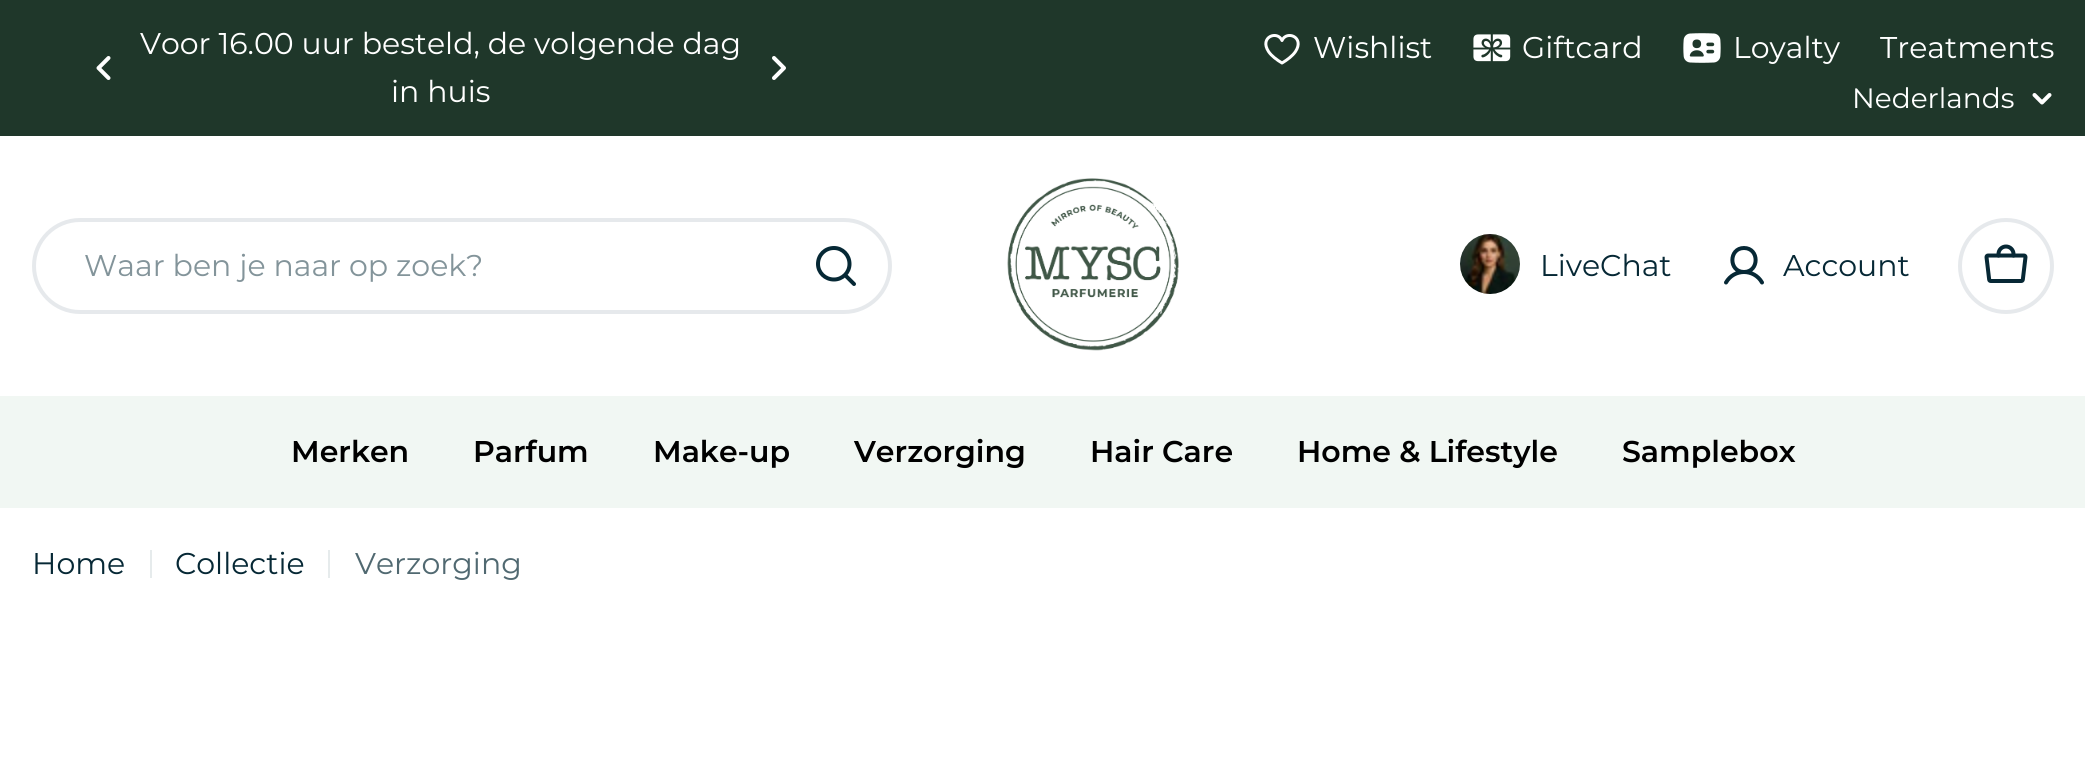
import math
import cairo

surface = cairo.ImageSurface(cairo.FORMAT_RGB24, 2085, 775)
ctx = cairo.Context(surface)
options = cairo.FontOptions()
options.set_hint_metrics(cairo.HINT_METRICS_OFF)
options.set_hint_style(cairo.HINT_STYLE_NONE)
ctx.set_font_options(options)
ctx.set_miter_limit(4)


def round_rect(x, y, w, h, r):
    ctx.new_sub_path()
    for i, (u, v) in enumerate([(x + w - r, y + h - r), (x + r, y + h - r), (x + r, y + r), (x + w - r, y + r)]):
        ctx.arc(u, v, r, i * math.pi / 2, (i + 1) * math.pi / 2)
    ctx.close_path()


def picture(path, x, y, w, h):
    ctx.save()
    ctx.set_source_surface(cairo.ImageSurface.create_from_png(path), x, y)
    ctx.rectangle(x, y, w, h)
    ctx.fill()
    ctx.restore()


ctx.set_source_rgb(1, 1, 1)
ctx.paint()
ctx.set_source_rgb(0.122, 0.216, 0.165)
ctx.rectangle(0, 0, 2085, 136)
ctx.fill()
ctx.select_font_face("Montserrat")
ctx.set_font_size(30)
ctx.set_source_rgb(1, 1, 1)
ctx.move_to(140, 54)
ctx.show_text("Voor 16.00 uur besteld, de volgende dag")
ctx.move_to(391, 102)
ctx.show_text("in huis")
ctx.new_path()
ctx.move_to(108.5, 78)
ctx.line_to(98.5, 68)
ctx.line_to(108.5, 58)
ctx.set_line_width(4)
ctx.set_line_cap(cairo.LINE_CAP_ROUND)
ctx.set_line_join(cairo.LINE_JOIN_ROUND)
ctx.stroke()
ctx.new_path()
ctx.move_to(774, 58)
ctx.line_to(784, 68)
ctx.line_to(774, 78)
ctx.stroke()
ctx.new_path()
ctx.move_to(1282, 63)
ctx.curve_to(1277, 60, 1271.5, 56, 1268.5, 51.5)
ctx.curve_to(1259, 37, 1277.5, 30, 1282, 40.5)
ctx.curve_to(1286.5, 30, 1305, 37, 1295.5, 51.5)
ctx.curve_to(1292.5, 56, 1287, 60, 1282, 63)
ctx.close_path()
ctx.set_line_width(3)
ctx.stroke()
ctx.move_to(1313, 58)
ctx.show_text("Wishlist")
picture("img1.png", 1473, 34, 38, 28)
ctx.move_to(1522, 58)
ctx.show_text("Giftcard")
picture("img2.png", 1683, 33, 38, 30)
ctx.move_to(1733, 58)
ctx.show_text("Loyalty")
ctx.move_to(1880, 58)
ctx.show_text("Treatments")
ctx.set_font_size(28)
ctx.move_to(1852, 108)
ctx.show_text("Nederlands")
ctx.new_path()
ctx.move_to(2049.5, 95)
ctx.line_to(2042, 102.5)
ctx.line_to(2034.5, 95)
ctx.set_line_width(4)
ctx.stroke()
round_rect(34, 220, 856, 92, 46)
ctx.set_source_rgb(0.902, 0.914, 0.922)
ctx.set_line_cap(cairo.LINE_CAP_BUTT)
ctx.set_line_join(cairo.LINE_JOIN_MITER)
ctx.stroke()
ctx.set_font_size(30)
ctx.set_source_rgb(0.514, 0.58, 0.604)
ctx.move_to(84, 276)
ctx.show_text("Waar ben je naar op zoek?")
ctx.new_path()
ctx.move_to(834, 279.5)
ctx.curve_to(842.5, 279.5, 849.5, 272.5, 849.5, 264)
ctx.curve_to(849.5, 255, 842.5, 248, 834, 248)
ctx.curve_to(825, 248, 818, 255, 818, 264)
ctx.curve_to(818, 272.5, 825, 279.5, 834, 279.5)
ctx.close_path()
ctx.move_to(845, 275)
ctx.line_to(854, 284)
ctx.set_source_rgb(0.027, 0.157, 0.208)
ctx.set_line_cap(cairo.LINE_CAP_ROUND)
ctx.set_line_join(cairo.LINE_JOIN_ROUND)
ctx.stroke()
picture("img3.png", 1007, 178, 172, 173)
picture("img4.png", 1460, 234, 60, 60)
ctx.move_to(1540, 276)
ctx.show_text("LiveChat")
ctx.new_path()
ctx.move_to(1744, 272)
ctx.curve_to(1759.5, 272, 1759.5, 248, 1744, 248)
ctx.curve_to(1728.5, 248, 1728.5, 272, 1744, 272)
ctx.close_path()
ctx.move_to(1726, 282.5)
ctx.curve_to(1734, 268.5, 1754, 268.5, 1762, 282.5)
ctx.stroke()
ctx.move_to(1783, 276)
ctx.show_text("Account")
ctx.new_path()
ctx.arc(2006, 266, 46, 0, 2 * math.pi)
ctx.set_source_rgb(0.902, 0.914, 0.922)
ctx.set_line_cap(cairo.LINE_CAP_BUTT)
ctx.set_line_join(cairo.LINE_JOIN_MITER)
ctx.stroke()
picture("img5.png", 1984, 244, 44, 39)
ctx.set_source_rgb(0.945, 0.965, 0.953)
ctx.rectangle(0, 396, 2085, 112)
ctx.fill()
ctx.select_font_face("Montserrat SemiBold")
ctx.set_source_rgb(0, 0, 0)
ctx.move_to(291, 462)
ctx.show_text("Merken")
ctx.move_to(473, 462)
ctx.show_text("Parfum")
ctx.move_to(653, 462)
ctx.show_text("Make-up")
ctx.move_to(854, 462)
ctx.show_text("Verzorging")
ctx.move_to(1090, 462)
ctx.show_text("Hair Care")
ctx.move_to(1297, 462)
ctx.show_text("Home & Lifestyle")
ctx.move_to(1622, 462)
ctx.show_text("Samplebox")
ctx.select_font_face("Montserrat")
ctx.set_source_rgb(0.027, 0.157, 0.208)
ctx.move_to(32, 574)
ctx.show_text("Home")
ctx.set_source_rgb(0.902, 0.918, 0.922)
ctx.rectangle(150, 550, 2, 28)
ctx.fill()
ctx.set_source_rgb(0.027, 0.157, 0.208)
ctx.move_to(175, 574)
ctx.show_text("Collectie")
ctx.set_source_rgb(0.902, 0.918, 0.922)
ctx.rectangle(328, 550, 2, 28)
ctx.fill()
ctx.set_source_rgb(0.318, 0.412, 0.443)
ctx.move_to(355, 574)
ctx.show_text("Verzorging")
surface.write_to_png("page.png")
